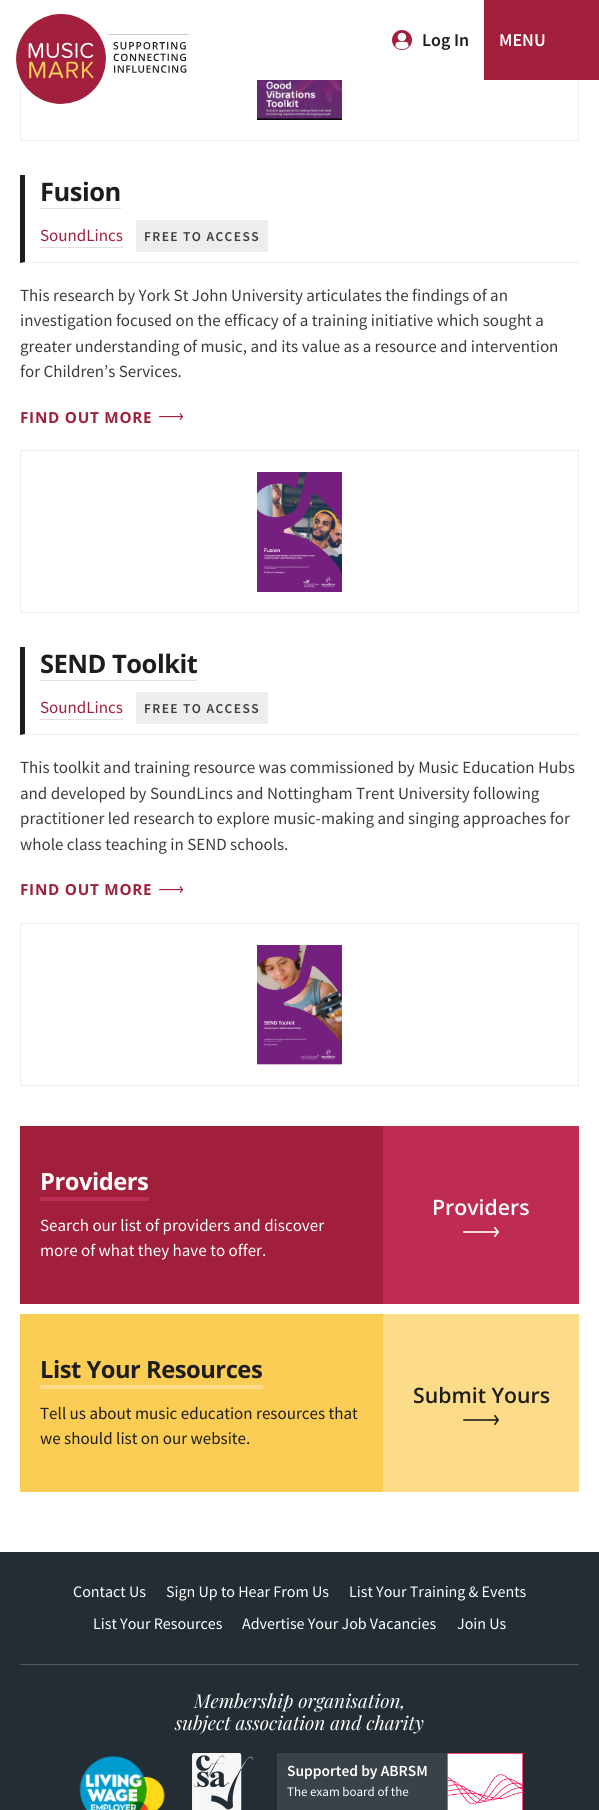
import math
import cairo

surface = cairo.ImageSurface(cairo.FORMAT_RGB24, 599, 1810)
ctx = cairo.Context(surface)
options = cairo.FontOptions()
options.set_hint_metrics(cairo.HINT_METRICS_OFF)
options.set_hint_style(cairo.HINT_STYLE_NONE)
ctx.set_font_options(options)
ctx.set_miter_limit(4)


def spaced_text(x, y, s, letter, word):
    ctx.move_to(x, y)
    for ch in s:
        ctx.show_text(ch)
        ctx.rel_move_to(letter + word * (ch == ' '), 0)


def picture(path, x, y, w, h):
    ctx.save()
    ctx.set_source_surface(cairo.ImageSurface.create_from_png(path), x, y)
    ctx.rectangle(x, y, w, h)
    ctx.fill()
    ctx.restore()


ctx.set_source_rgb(1, 1, 1)
ctx.paint()
ctx.rectangle(20.5, -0.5, 558, 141)
ctx.set_source_rgb(0.929, 0.929, 0.929)
ctx.set_line_width(1)
ctx.stroke()
ctx.set_source_rgb(1, 1, 1)
ctx.rectangle(20, 0, 1, 80)
ctx.fill()
picture("img1.png", 16, 14, 173, 90)
picture("img2.png", 392, 30, 20, 20)
ctx.select_font_face("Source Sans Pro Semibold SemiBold")
ctx.set_font_size(18)
ctx.set_source_rgb(0.114, 0.114, 0.106)
ctx.move_to(422, 46)
ctx.show_text("Log In")
ctx.set_source_rgb(0.635, 0.122, 0.235)
ctx.rectangle(484, 0, 115, 80)
ctx.fill()
ctx.set_source_rgb(1, 1, 1)
ctx.move_to(499, 46)
ctx.show_text("MENU")
picture("img3.png", 257, 80, 85, 40)
ctx.set_source_rgb(0.929, 0.929, 0.929)
ctx.new_path()
ctx.move_to(579, 263)
ctx.line_to(20, 263)
ctx.line_to(25, 262)
ctx.line_to(579, 262)
ctx.close_path()
ctx.fill()
ctx.set_source_rgb(0.114, 0.114, 0.106)
ctx.new_path()
ctx.move_to(20, 263)
ctx.line_to(20, 175)
ctx.line_to(25, 175)
ctx.line_to(25, 262)
ctx.close_path()
ctx.fill()
ctx.select_font_face("Open Sans", cairo.FONT_SLANT_NORMAL, cairo.FONT_WEIGHT_BOLD)
ctx.set_font_size(25.5)
spaced_text(40, 201, "Fusion", -0.5, 0)
ctx.set_source_rgb(0.878, 0.878, 0.878)
ctx.rectangle(40, 208, 81, 1)
ctx.fill()
ctx.select_font_face("Source Sans Pro")
ctx.set_font_size(17)
ctx.set_source_rgb(0.635, 0.122, 0.235)
ctx.move_to(40, 241)
ctx.show_text("SoundLincs")
ctx.set_source_rgb(0.878, 0.878, 0.878)
ctx.rectangle(40, 247, 83, 1)
ctx.fill()
ctx.set_source_rgb(0.929, 0.929, 0.929)
ctx.rectangle(136, 220, 132, 32)
ctx.fill()
ctx.select_font_face("Source Sans Pro Semibold SemiBold")
ctx.set_font_size(13.5)
ctx.set_source_rgb(0.235, 0.235, 0.231)
spaced_text(144, 241, "FREE TO ACCESS", 1.4, 0)
ctx.select_font_face("Source Sans Pro")
ctx.set_font_size(17)
ctx.move_to(20, 301)
ctx.show_text("This research by York St John University articulates the findings of an")
ctx.move_to(20, 326)
ctx.show_text("investigation focused on the efficacy of a training initiative which sought a")
ctx.move_to(20, 352)
ctx.show_text("greater understanding of music, and its value as a resource and intervention")
ctx.move_to(20, 377)
ctx.show_text("for Children’s Services.")
ctx.select_font_face("Open Sans", cairo.FONT_SLANT_NORMAL, cairo.FONT_WEIGHT_BOLD)
ctx.set_font_size(15.25)
ctx.set_source_rgb(0.635, 0.122, 0.235)
spaced_text(20, 423, "FIND OUT MORE", 0.75, 0)
picture("img4.png", 159, 413, 24, 7)
ctx.rectangle(20.5, 450.5, 558, 162)
ctx.set_source_rgb(0.929, 0.929, 0.929)
ctx.stroke()
picture("img5.png", 257, 472, 85, 120)
ctx.new_path()
ctx.move_to(579, 735)
ctx.line_to(20, 735)
ctx.line_to(25, 734)
ctx.line_to(579, 734)
ctx.close_path()
ctx.fill()
ctx.set_source_rgb(0.114, 0.114, 0.106)
ctx.new_path()
ctx.move_to(20, 735)
ctx.line_to(20, 647)
ctx.line_to(25, 647)
ctx.line_to(25, 734)
ctx.close_path()
ctx.fill()
ctx.set_font_size(25.5)
spaced_text(40, 673, "SEND Toolkit", -0.5, 0)
ctx.set_source_rgb(0.878, 0.878, 0.878)
ctx.rectangle(40, 680, 157, 1)
ctx.fill()
ctx.select_font_face("Source Sans Pro")
ctx.set_font_size(17)
ctx.set_source_rgb(0.635, 0.122, 0.235)
ctx.move_to(40, 713)
ctx.show_text("SoundLincs")
ctx.set_source_rgb(0.878, 0.878, 0.878)
ctx.rectangle(40, 719, 83, 1)
ctx.fill()
ctx.set_source_rgb(0.929, 0.929, 0.929)
ctx.rectangle(136, 692, 132, 32)
ctx.fill()
ctx.select_font_face("Source Sans Pro Semibold SemiBold")
ctx.set_font_size(13.5)
ctx.set_source_rgb(0.235, 0.235, 0.231)
spaced_text(144, 713, "FREE TO ACCESS", 1.4, 0)
ctx.select_font_face("Source Sans Pro")
ctx.set_font_size(17)
ctx.move_to(20, 773)
ctx.show_text("This toolkit and training resource was commissioned by Music Education Hubs")
ctx.move_to(20, 799)
ctx.show_text("and developed by SoundLincs and Nottingham Trent University following")
ctx.move_to(20, 824)
ctx.show_text("practitioner led research to explore music-making and singing approaches for")
ctx.move_to(20, 850)
ctx.show_text("whole class teaching in SEND schools.")
ctx.select_font_face("Open Sans", cairo.FONT_SLANT_NORMAL, cairo.FONT_WEIGHT_BOLD)
ctx.set_font_size(15.25)
ctx.set_source_rgb(0.635, 0.122, 0.235)
spaced_text(20, 895, "FIND OUT MORE", 0.75, 0)
picture("img4.png", 159, 886, 24, 7)
ctx.rectangle(20.5, 923.5, 558, 162)
ctx.set_source_rgb(0.929, 0.929, 0.929)
ctx.stroke()
picture("img6.png", 257, 945, 85, 120)
ctx.set_source_rgb(0.635, 0.122, 0.235)
ctx.rectangle(20, 1126, 363, 178)
ctx.fill()
ctx.set_source_rgb(0.749, 0.173, 0.325)
ctx.rectangle(40, 1197, 109, 4)
ctx.fill()
ctx.set_font_size(23.75)
ctx.set_source_rgb(1, 1, 1)
spaced_text(40, 1190, "Providers", -0.5, 0)
ctx.select_font_face("Source Sans Pro")
ctx.set_font_size(17)
ctx.move_to(40, 1231)
ctx.show_text("Search our list of providers and discover")
ctx.move_to(40, 1256)
ctx.show_text("more of what they have to offer.")
ctx.set_source_rgb(0.749, 0.173, 0.325)
ctx.rectangle(383, 1126, 196, 178)
ctx.fill()
ctx.select_font_face("Open Sans SemiBold")
ctx.set_font_size(21.25)
ctx.set_source_rgb(1, 1, 1)
ctx.move_to(432, 1215)
ctx.show_text("Providers")
picture("img7.png", 463, 1227, 36, 10)
ctx.set_source_rgb(0.984, 0.804, 0.329)
ctx.rectangle(20, 1314, 363, 178)
ctx.fill()
ctx.set_source_rgb(0.988, 0.863, 0.533)
ctx.rectangle(40, 1385, 223, 4)
ctx.fill()
ctx.select_font_face("Open Sans", cairo.FONT_SLANT_NORMAL, cairo.FONT_WEIGHT_BOLD)
ctx.set_font_size(23.75)
ctx.set_source_rgb(0.114, 0.114, 0.106)
spaced_text(40, 1378, "List Your Resources", -0.5, 0)
ctx.select_font_face("Source Sans Pro")
ctx.set_font_size(17)
ctx.move_to(40, 1419)
ctx.show_text("Tell us about music education resources that")
ctx.move_to(40, 1444)
ctx.show_text("we should list on our website.")
ctx.set_source_rgb(0.988, 0.863, 0.533)
ctx.rectangle(383, 1314, 196, 178)
ctx.fill()
ctx.select_font_face("Open Sans SemiBold")
ctx.set_font_size(21.25)
ctx.set_source_rgb(0.114, 0.114, 0.106)
ctx.move_to(413, 1403)
ctx.show_text("Submit Yours")
picture("img8.png", 463, 1415, 36, 10)
ctx.set_source_rgb(0.141, 0.176, 0.204)
ctx.rectangle(0, 1552, 599, 258)
ctx.fill()
ctx.set_source_rgb(0.314, 0.341, 0.365)
ctx.rectangle(20, 1664, 559, 1)
ctx.fill()
ctx.select_font_face("Source Sans Pro")
ctx.set_font_size(16)
ctx.set_source_rgb(1, 1, 1)
ctx.move_to(73, 1597)
ctx.show_text("Contact Us")
ctx.move_to(166, 1597)
ctx.show_text("Sign Up to Hear From Us")
ctx.move_to(349, 1597)
ctx.show_text("List Your Training & Events")
ctx.move_to(93, 1629)
ctx.show_text("List Your Resources")
ctx.move_to(242, 1629)
ctx.show_text("Advertise Your Job Vacancies")
ctx.move_to(457, 1629)
ctx.show_text("Join Us")
ctx.select_font_face("Playfair Display", cairo.FONT_SLANT_ITALIC)
ctx.set_font_size(19)
ctx.move_to(194, 1708)
ctx.show_text("Membership organisation,")
ctx.move_to(175, 1730)
ctx.show_text("subject association and charity")
picture("img9.png", 79, 1755, 86, 55)
picture("img10.png", 192, 1753, 61, 57)
ctx.set_source_rgb(0.227, 0.259, 0.286)
ctx.rectangle(277, 1753, 170, 57)
ctx.fill()
ctx.select_font_face("Source Sans Pro Semibold SemiBold")
ctx.set_font_size(15.5)
ctx.set_source_rgb(1, 1, 1)
ctx.move_to(287, 1776)
ctx.show_text("Supported by ABRSM")
ctx.select_font_face("Source Sans Pro")
ctx.set_font_size(13)
ctx.move_to(287, 1796)
ctx.show_text("The exam board of the")
picture("img11.png", 447, 1753, 76, 57)
surface.write_to_png("page.png")
